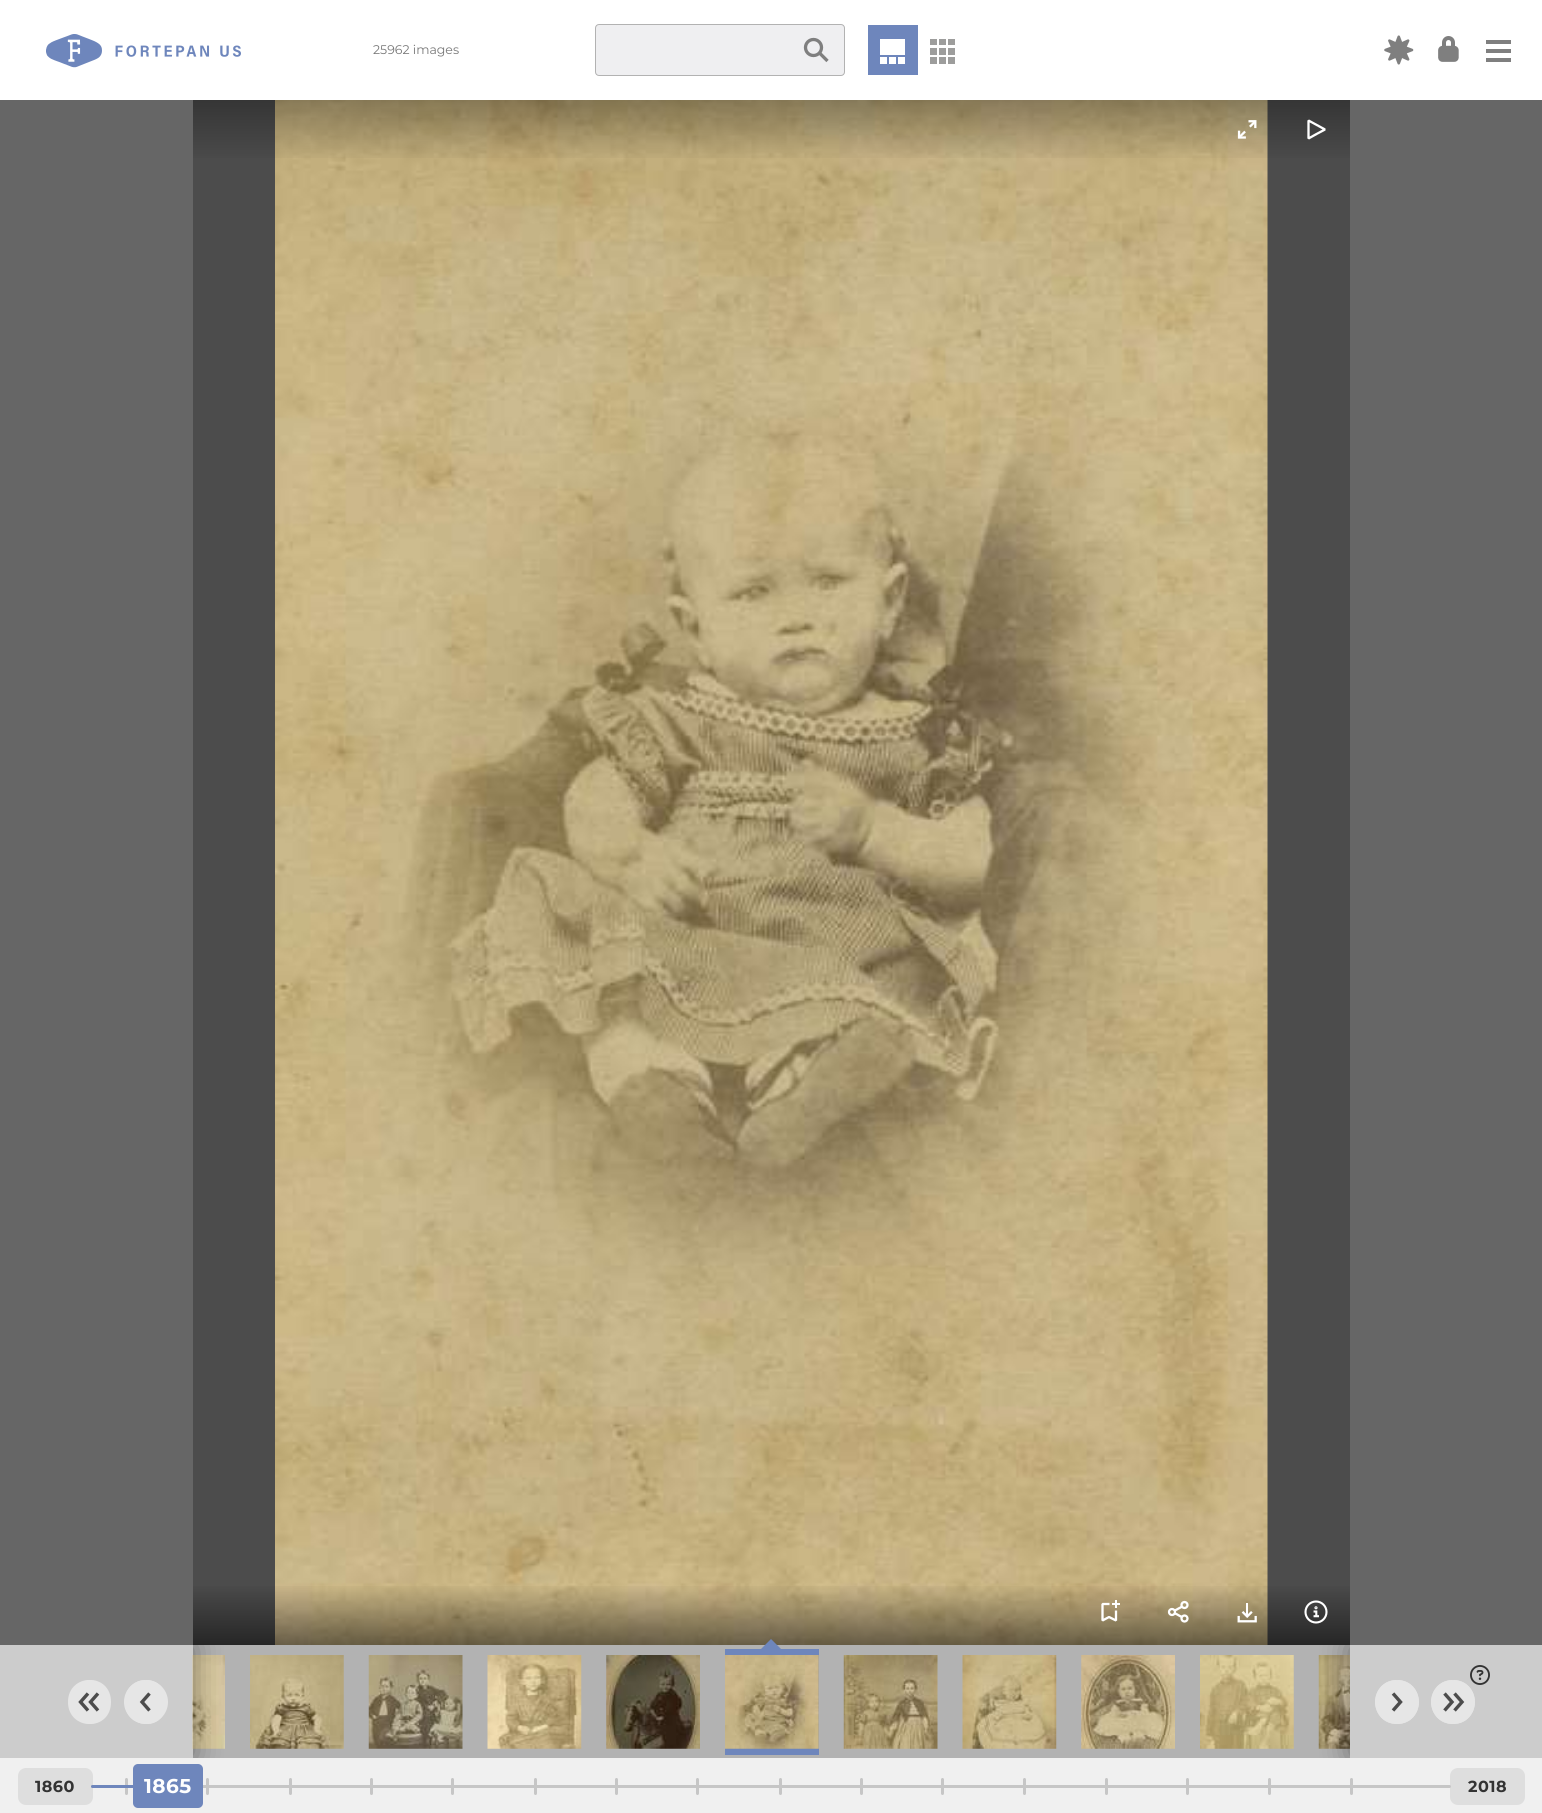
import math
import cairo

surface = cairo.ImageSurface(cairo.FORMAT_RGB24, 1542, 1813)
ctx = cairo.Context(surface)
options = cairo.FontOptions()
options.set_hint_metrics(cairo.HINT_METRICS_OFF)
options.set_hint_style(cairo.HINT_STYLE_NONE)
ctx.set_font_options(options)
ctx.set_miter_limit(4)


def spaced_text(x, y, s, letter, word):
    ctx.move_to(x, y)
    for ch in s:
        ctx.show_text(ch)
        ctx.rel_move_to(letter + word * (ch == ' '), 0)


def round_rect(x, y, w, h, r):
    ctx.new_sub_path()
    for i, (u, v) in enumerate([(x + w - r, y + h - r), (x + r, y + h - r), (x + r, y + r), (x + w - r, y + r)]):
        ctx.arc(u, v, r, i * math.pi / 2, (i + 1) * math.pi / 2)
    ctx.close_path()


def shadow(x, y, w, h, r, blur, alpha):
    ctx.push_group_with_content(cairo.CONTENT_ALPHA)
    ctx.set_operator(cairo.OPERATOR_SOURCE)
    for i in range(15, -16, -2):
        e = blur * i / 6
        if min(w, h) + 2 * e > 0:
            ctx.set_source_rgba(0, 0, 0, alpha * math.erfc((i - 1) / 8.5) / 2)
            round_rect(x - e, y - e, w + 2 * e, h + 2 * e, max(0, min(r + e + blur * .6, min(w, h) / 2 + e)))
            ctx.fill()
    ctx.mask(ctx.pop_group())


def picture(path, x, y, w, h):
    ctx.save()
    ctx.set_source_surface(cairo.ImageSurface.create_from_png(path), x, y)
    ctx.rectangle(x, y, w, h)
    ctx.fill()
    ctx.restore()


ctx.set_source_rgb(1, 1, 1)
ctx.paint()
picture("img1.png", 46, 34, 195, 34)
ctx.select_font_face("Montserrat")
ctx.set_font_size(12.5)
ctx.set_source_rgb(0.467, 0.467, 0.467)
ctx.move_to(373, 54)
ctx.show_text("25962 images")
ctx.set_source_rgb(0.937, 0.937, 0.945)
round_rect(595.5, 24.5, 249, 51, 3.5)
ctx.fill_preserve()
ctx.set_source_rgb(0.698, 0.698, 0.698)
ctx.set_line_width(1)
ctx.stroke()
ctx.arc(813.5, 47.5, 8, 0, 2 * math.pi)
ctx.set_source_rgb(0.498, 0.498, 0.498)
ctx.set_line_width(3.3)
ctx.stroke()
ctx.new_path()
ctx.move_to(819.5, 53)
ctx.line_to(827.5, 61)
ctx.stroke()
ctx.set_source_rgb(0.431, 0.525, 0.737)
ctx.rectangle(868, 25, 50, 50)
ctx.fill()
ctx.set_source_rgb(1, 1, 1)
ctx.rectangle(880, 39, 25, 16)
ctx.fill()
ctx.rectangle(880, 57, 7, 7)
ctx.fill()
ctx.rectangle(889, 57, 7, 7)
ctx.fill()
ctx.rectangle(898, 57, 7, 7)
ctx.fill()
picture("img2.png", 930, 39, 25, 25)
picture("img3.png", 1384, 35, 30, 30)
picture("img4.png", 1438, 36, 21, 26)
ctx.set_source_rgb(0.498, 0.498, 0.498)
ctx.rectangle(1486, 49, 25, 4)
ctx.fill()
ctx.rectangle(1486, 40, 25, 4)
ctx.fill()
ctx.rectangle(1486, 58, 25, 4)
ctx.fill()
ctx.set_source_rgb(0.4, 0.4, 0.4)
ctx.rectangle(0, 100, 1542, 1545)
ctx.fill()
ctx.set_source_rgb(0.298, 0.298, 0.298)
ctx.rectangle(193, 100, 1157, 1545)
ctx.fill()
picture("img5.png", 275, 100, 993, 1545)
gradient = cairo.LinearGradient(772, 100, 772, 163)
gradient.add_color_stop_rgba(0, 0, 0, 0, 0.3)
gradient.add_color_stop_rgba(1, 0, 0, 0, 0)
ctx.set_source(gradient)
ctx.rectangle(193, 100, 1157, 58)
ctx.fill()
picture("img6.png", 1237, 120, 20, 19)
ctx.new_path()
ctx.move_to(1316.5, 134)
ctx.line_to(1308.5, 138.5)
ctx.line_to(1308.5, 120.5)
ctx.line_to(1325, 129.5)
ctx.close_path()
ctx.set_source_rgb(1, 1, 1)
ctx.set_line_width(2.3)
ctx.set_line_join(cairo.LINE_JOIN_BEVEL)
ctx.stroke()
gradient = cairo.LinearGradient(772, 1583, 772, 1645)
gradient.add_color_stop_rgba(0, 0, 0, 0, 0)
gradient.add_color_stop_rgba(1, 0, 0, 0, 0.5)
ctx.set_source(gradient)
ctx.rectangle(193, 1586, 1157, 59)
ctx.fill()
ctx.new_path()
ctx.move_to(1116, 1610.5)
ctx.line_to(1116, 1620.5)
ctx.line_to(1109, 1617)
ctx.line_to(1102.5, 1620.5)
ctx.line_to(1102.5, 1604)
ctx.line_to(1109.5, 1604)
ctx.set_source_rgb(1, 1, 1)
ctx.stroke()
ctx.rectangle(1115, 1600, 2, 8)
ctx.fill()
ctx.rectangle(1112, 1603, 8, 2)
ctx.fill()
picture("img7.png", 1167, 1600, 22, 23)
picture("img8.png", 1237, 1603, 20, 20)
picture("img9.png", 1304, 1600, 24, 24)
ctx.set_source_rgb(0.8, 0.8, 0.8)
ctx.rectangle(0, 1645, 1542, 113)
ctx.fill()
ctx.set_source_rgb(0.698, 0.698, 0.698)
ctx.rectangle(193, 1645, 1157, 113)
ctx.fill()
picture("img10.png", 192, 1655, 33, 94)
ctx.set_source_rgb(0.941, 0.941, 0.941)
ctx.rectangle(0, 1758, 1542, 55)
ctx.fill()
ctx.set_source_rgb(0.871, 0.871, 0.871)
round_rect(18, 1768, 75, 37, 8)
ctx.fill()
ctx.set_source_rgb(0.776, 0.776, 0.776)
round_rect(125, 1778, 3, 17, 1.5)
ctx.fill()
round_rect(206, 1778, 3, 17, 1.5)
ctx.fill()
round_rect(289, 1778, 3, 17, 1.5)
ctx.fill()
round_rect(370, 1778, 3, 17, 1.5)
ctx.fill()
round_rect(451, 1778, 3, 17, 1.5)
ctx.fill()
round_rect(534, 1778, 3, 17, 1.5)
ctx.fill()
round_rect(615, 1778, 3, 17, 1.5)
ctx.fill()
round_rect(696, 1778, 3, 17, 1.5)
ctx.fill()
round_rect(779, 1778, 3, 17, 1.5)
ctx.fill()
round_rect(860, 1778, 3, 17, 1.5)
ctx.fill()
round_rect(941, 1778, 3, 17, 1.5)
ctx.fill()
round_rect(1023, 1778, 3, 17, 1.5)
ctx.fill()
round_rect(1105, 1778, 3, 17, 1.5)
ctx.fill()
round_rect(1186, 1778, 3, 17, 1.5)
ctx.fill()
round_rect(1268, 1778, 3, 17, 1.5)
ctx.fill()
round_rect(1350, 1778, 3, 17, 1.5)
ctx.fill()
ctx.set_source_rgb(0.871, 0.871, 0.871)
round_rect(1450, 1768, 75, 37, 8)
ctx.fill()
ctx.set_source_rgb(0.776, 0.776, 0.776)
round_rect(91, 1785, 1360, 3, 1.5)
ctx.fill()
ctx.set_source_rgb(0.431, 0.525, 0.737)
round_rect(91, 1785, 79, 3, 1.5)
ctx.fill()
round_rect(133, 1764, 70, 44, 5)
ctx.fill()
ctx.save()
ctx.rectangle(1, 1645, 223, 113)
ctx.clip()
ctx.set_fill_rule(cairo.FILL_RULE_EVEN_ODD)
ctx.new_path()
ctx.move_to(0, 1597)
ctx.line_to(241, 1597)
ctx.line_to(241, 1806)
ctx.line_to(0, 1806)
ctx.close_path()
ctx.move_to(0, 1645)
ctx.line_to(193, 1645)
ctx.line_to(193, 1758)
ctx.line_to(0, 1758)
ctx.close_path()
ctx.clip()
ctx.set_source_rgb(0, 0, 0)
shadow(0, 1645, 193, 113, 0, 15.5, 0.4)
ctx.restore()
ctx.save()
ctx.rectangle(68, 1680, 43, 44)
ctx.clip()
ctx.set_source_rgb(0.902, 0.902, 0.902)
ctx.new_path()
ctx.move_to(68, 1702)
ctx.curve_to(68, 1673, 111, 1672, 111, 1702)
ctx.curve_to(111, 1732, 68, 1731, 68, 1702)
ctx.close_path()
ctx.fill()
ctx.restore()
ctx.new_path()
ctx.move_to(98, 1693.5)
ctx.line_to(90.5, 1702)
ctx.line_to(98, 1710.5)
ctx.move_to(88, 1693.5)
ctx.line_to(80.5, 1702)
ctx.line_to(88, 1710.5)
ctx.set_source_rgb(0.298, 0.298, 0.298)
ctx.set_line_width(3.4)
ctx.set_line_join(cairo.LINE_JOIN_MITER)
ctx.stroke()
ctx.set_source_rgb(0.902, 0.902, 0.902)
ctx.arc(146, 1702, 22, 0, 2 * math.pi)
ctx.fill()
ctx.new_path()
ctx.move_to(146, 1680)
ctx.curve_to(118, 1680, 117, 1723, 146, 1724)
ctx.curve_to(173, 1725, 174, 1680, 146, 1680)
ctx.close_path()
ctx.fill()
ctx.new_path()
ctx.move_to(149.5, 1693.5)
ctx.line_to(142, 1702)
ctx.line_to(149.5, 1710.5)
ctx.set_source_rgb(0.298, 0.298, 0.298)
ctx.stroke()
picture("img11.png", 250, 1655, 94, 94)
picture("img12.png", 368, 1655, 95, 94)
picture("img13.png", 487, 1655, 95, 94)
picture("img14.png", 606, 1655, 94, 94)
ctx.set_source_rgb(0.431, 0.525, 0.737)
ctx.new_path()
ctx.move_to(781, 1649)
ctx.line_to(761, 1649)
ctx.line_to(771, 1639)
ctx.close_path()
ctx.fill()
ctx.rectangle(725, 1649, 94, 106)
ctx.fill()
picture("img15.png", 725, 1655, 94, 94)
picture("img16.png", 843, 1655, 95, 94)
picture("img17.png", 962, 1655, 95, 94)
picture("img18.png", 1081, 1655, 94, 94)
picture("img19.png", 1200, 1655, 94, 94)
picture("img20.png", 1318, 1655, 32, 94)
ctx.save()
ctx.rectangle(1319, 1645, 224, 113)
ctx.clip()
ctx.set_fill_rule(cairo.FILL_RULE_EVEN_ODD)
ctx.new_path()
ctx.move_to(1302, 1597)
ctx.line_to(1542, 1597)
ctx.line_to(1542, 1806)
ctx.line_to(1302, 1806)
ctx.close_path()
ctx.move_to(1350, 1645)
ctx.line_to(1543, 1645)
ctx.line_to(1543, 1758)
ctx.line_to(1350, 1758)
ctx.close_path()
ctx.clip()
ctx.set_source_rgb(0, 0, 0)
shadow(1350, 1645, 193, 113, 0, 15.5, 0.4)
ctx.restore()
ctx.set_source_rgb(0.902, 0.902, 0.902)
ctx.arc(1397, 1702, 22, 0, 2 * math.pi)
ctx.fill()
ctx.new_path()
ctx.move_to(1397, 1724)
ctx.curve_to(1426, 1724, 1426, 1680, 1397, 1680)
ctx.curve_to(1368, 1680, 1368, 1724, 1397, 1724)
ctx.close_path()
ctx.fill()
ctx.new_path()
ctx.move_to(1393, 1710.5)
ctx.line_to(1400.5, 1702)
ctx.line_to(1393, 1693.5)
ctx.set_source_rgb(0.298, 0.298, 0.298)
ctx.stroke()
ctx.set_source_rgb(0.902, 0.902, 0.902)
ctx.arc(1453, 1702, 22, 0, 2 * math.pi)
ctx.fill()
ctx.new_path()
ctx.move_to(1453, 1724)
ctx.curve_to(1482, 1724, 1482, 1680, 1453, 1680)
ctx.curve_to(1424, 1680, 1424, 1724, 1453, 1724)
ctx.close_path()
ctx.fill()
ctx.new_path()
ctx.move_to(1444.5, 1710.5)
ctx.line_to(1452, 1702)
ctx.line_to(1444.5, 1693.5)
ctx.move_to(1454.5, 1710.5)
ctx.line_to(1462, 1702)
ctx.line_to(1454.5, 1693.5)
ctx.set_source_rgb(0.298, 0.298, 0.298)
ctx.stroke()
picture("img21.png", 1470, 1665, 20, 20)
ctx.select_font_face("Montserrat", cairo.FONT_SLANT_NORMAL, cairo.FONT_WEIGHT_BOLD)
ctx.set_font_size(16)
ctx.set_source_rgb(0.2, 0.2, 0.2)
spaced_text(35, 1792, "1860", 0.5, 0)
ctx.set_font_size(20)
ctx.set_source_rgb(0.996, 0.996, 0.996)
spaced_text(144, 1793, "1865", 0.5, 0)
ctx.set_font_size(16)
ctx.set_source_rgb(0.2, 0.2, 0.2)
spaced_text(1468, 1792, "2018", 0.5, 0)
surface.write_to_png("page.png")
